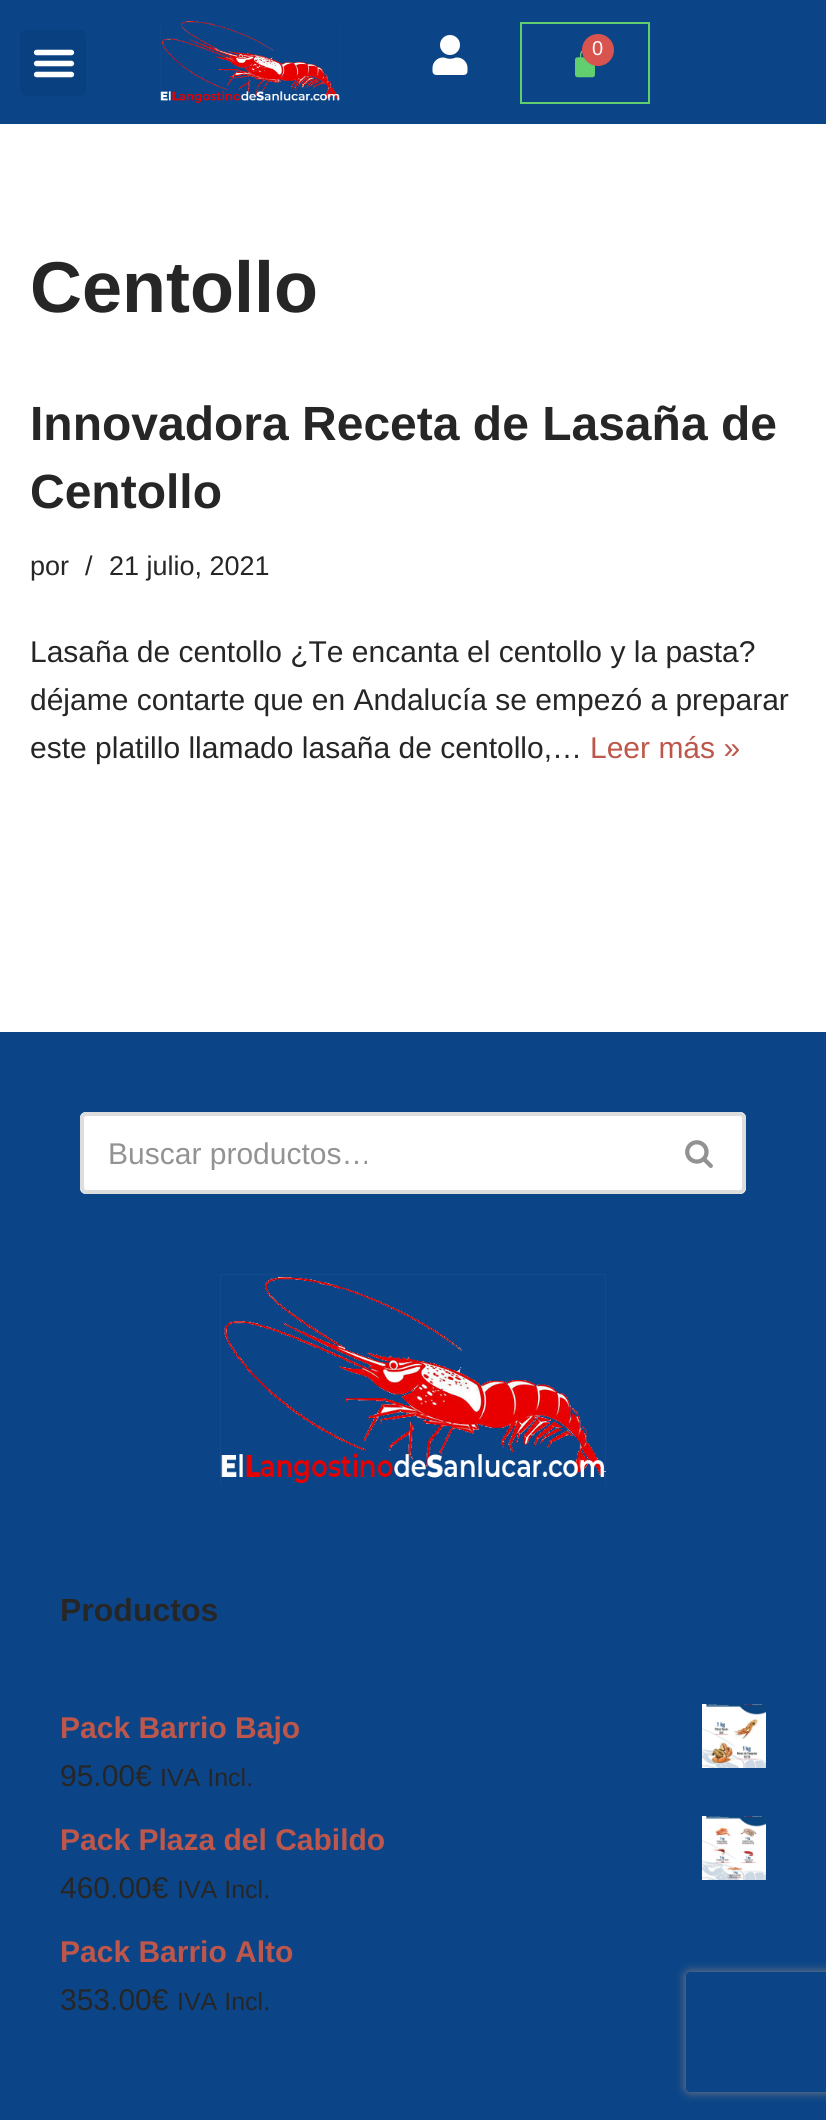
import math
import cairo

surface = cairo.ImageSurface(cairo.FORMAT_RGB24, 826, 2120)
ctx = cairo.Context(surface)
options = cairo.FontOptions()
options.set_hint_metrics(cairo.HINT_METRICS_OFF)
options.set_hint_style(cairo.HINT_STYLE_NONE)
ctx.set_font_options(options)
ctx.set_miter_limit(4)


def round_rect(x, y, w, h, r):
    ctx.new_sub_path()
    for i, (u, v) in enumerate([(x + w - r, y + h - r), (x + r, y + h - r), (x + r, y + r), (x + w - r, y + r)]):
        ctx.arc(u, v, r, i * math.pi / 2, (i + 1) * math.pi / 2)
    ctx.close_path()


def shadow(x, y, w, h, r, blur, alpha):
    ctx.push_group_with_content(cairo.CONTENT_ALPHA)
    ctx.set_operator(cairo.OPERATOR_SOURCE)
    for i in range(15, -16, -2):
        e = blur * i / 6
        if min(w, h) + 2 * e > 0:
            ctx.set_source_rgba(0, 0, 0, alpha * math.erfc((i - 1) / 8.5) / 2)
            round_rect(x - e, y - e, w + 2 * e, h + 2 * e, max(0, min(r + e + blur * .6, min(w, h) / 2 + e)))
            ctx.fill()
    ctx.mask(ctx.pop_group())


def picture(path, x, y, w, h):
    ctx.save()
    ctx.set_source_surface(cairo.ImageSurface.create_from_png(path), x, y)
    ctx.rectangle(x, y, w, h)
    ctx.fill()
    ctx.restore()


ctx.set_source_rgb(1, 1, 1)
ctx.paint()
ctx.set_source_rgb(0.043, 0.267, 0.529)
ctx.rectangle(0, 0, 826, 124)
ctx.fill()
ctx.set_source_rgb(0.039, 0.255, 0.502)
round_rect(20, 30, 66, 66, 6)
ctx.fill()
picture("img1.png", 33, 49, 42, 29)
picture("img2.png", 160, 21, 180, 82)
picture("img3.png", 432, 35, 36, 40)
ctx.rectangle(521, 23, 128, 80)
ctx.set_source_rgb(0.38, 0.808, 0.439)
ctx.stroke()
picture("img4.png", 575, 50, 20, 28)
ctx.set_source_rgb(0.851, 0.325, 0.31)
ctx.arc(598, 50, 16, 0, 2 * math.pi)
ctx.fill()
ctx.select_font_face("Liberation Sans")
ctx.set_font_size(20)
ctx.set_source_rgb(1, 1, 1)
ctx.move_to(592, 55)
ctx.show_text("0")
ctx.select_font_face("Liberation Sans", cairo.FONT_SLANT_NORMAL, cairo.FONT_WEIGHT_BOLD)
ctx.set_font_size(72)
ctx.set_source_rgb(0.153, 0.149, 0.149)
ctx.move_to(30, 312)
ctx.show_text("Centollo")
ctx.set_font_size(48)
ctx.move_to(30, 440)
ctx.show_text("Innovadora Receta de Lasaña de")
ctx.move_to(30, 508)
ctx.show_text("Centollo")
ctx.select_font_face("Liberation Sans")
ctx.set_font_size(27)
ctx.move_to(30, 575)
ctx.show_text("por")
ctx.move_to(85, 575)
ctx.show_text("/")
ctx.move_to(109, 575)
ctx.show_text("21 julio, 2021")
ctx.set_font_size(30)
ctx.move_to(30, 662)
ctx.show_text("Lasaña de centollo ¿Te encanta el centollo y la pasta?")
ctx.move_to(30, 710)
ctx.show_text("déjame contarte que en Andalucía se empezó a preparar")
ctx.move_to(30, 758)
ctx.show_text("este platillo llamado lasaña de centollo,…")
ctx.set_source_rgb(0.745, 0.341, 0.294)
ctx.move_to(590, 758)
ctx.show_text("Leer más »")
ctx.set_source_rgb(0.043, 0.267, 0.529)
ctx.rectangle(0, 1032, 826, 1088)
ctx.fill()
ctx.set_source_rgb(1, 1, 1)
ctx.new_path()
ctx.move_to(86, 1112)
ctx.line_to(656, 1112)
ctx.line_to(656, 1194)
ctx.line_to(86, 1194)
ctx.curve_to(82.5, 1194, 80, 1191.5, 80, 1188)
ctx.line_to(80, 1118)
ctx.curve_to(80, 1114.5, 82.5, 1112, 86, 1112)
ctx.close_path()
ctx.fill()
ctx.set_source_rgb(0.867, 0.867, 0.867)
ctx.set_fill_rule(cairo.FILL_RULE_EVEN_ODD)
ctx.new_path()
ctx.move_to(86, 1112)
ctx.line_to(656, 1112)
ctx.line_to(656, 1194)
ctx.line_to(86, 1194)
ctx.curve_to(83, 1194, 80, 1191, 80, 1188)
ctx.line_to(80, 1118)
ctx.curve_to(80, 1115, 83, 1112, 86, 1112)
ctx.close_path()
ctx.move_to(86, 1116)
ctx.line_to(656, 1116)
ctx.line_to(656, 1190)
ctx.line_to(86, 1190)
ctx.curve_to(85, 1190, 84, 1189, 84, 1188)
ctx.line_to(84, 1118)
ctx.curve_to(84, 1117, 85, 1116, 86, 1116)
ctx.close_path()
ctx.fill()
ctx.save()
ctx.set_fill_rule(cairo.FILL_RULE_WINDING)
ctx.rectangle(108, 1136, 496, 34)
ctx.clip()
ctx.set_source_rgb(0.576, 0.576, 0.576)
ctx.move_to(108, 1164)
ctx.show_text("Buscar productos…")
ctx.restore()
ctx.set_source_rgb(1, 1, 1)
ctx.new_path()
ctx.move_to(656, 1112)
ctx.line_to(740, 1112)
ctx.curve_to(743.5, 1112, 746, 1114.5, 746, 1118)
ctx.line_to(746, 1188)
ctx.curve_to(746, 1191.5, 743.5, 1194, 740, 1194)
ctx.line_to(656, 1194)
ctx.close_path()
ctx.fill()
ctx.set_source_rgb(0.867, 0.867, 0.867)
ctx.new_path()
ctx.move_to(656, 1112)
ctx.line_to(740, 1112)
ctx.curve_to(743, 1112, 746, 1115, 746, 1118)
ctx.line_to(746, 1188)
ctx.curve_to(746, 1191, 743, 1194, 740, 1194)
ctx.line_to(656, 1194)
ctx.close_path()
ctx.move_to(656, 1116)
ctx.line_to(740, 1116)
ctx.curve_to(741, 1116, 742, 1117, 742, 1118)
ctx.line_to(742, 1188)
ctx.curve_to(742, 1189, 741, 1190, 740, 1190)
ctx.line_to(656, 1190)
ctx.close_path()
ctx.fill()
picture("img5.png", 685, 1140, 28, 28)
picture("img6.png", 220, 1274, 386, 212)
ctx.select_font_face("Liberation Sans", cairo.FONT_SLANT_NORMAL, cairo.FONT_WEIGHT_BOLD)
ctx.set_font_size(32)
ctx.set_source_rgb(0.153, 0.149, 0.149)
ctx.move_to(60, 1621)
ctx.show_text("Productos")
ctx.set_font_size(30)
ctx.set_source_rgb(0.745, 0.341, 0.294)
ctx.move_to(60, 1738)
ctx.show_text("Pack Barrio Bajo")
picture("img7.png", 702, 1704, 64, 64)
ctx.select_font_face("Liberation Sans")
ctx.set_source_rgb(0.153, 0.149, 0.149)
ctx.move_to(60, 1786)
ctx.show_text("95.00€")
ctx.set_font_size(25)
ctx.move_to(160, 1786)
ctx.show_text("IVA Incl.")
ctx.select_font_face("Liberation Sans", cairo.FONT_SLANT_NORMAL, cairo.FONT_WEIGHT_BOLD)
ctx.set_font_size(30)
ctx.set_source_rgb(0.745, 0.341, 0.294)
ctx.move_to(60, 1850)
ctx.show_text("Pack Plaza del Cabildo")
picture("img8.png", 702, 1816, 64, 64)
ctx.select_font_face("Liberation Sans")
ctx.set_source_rgb(0.153, 0.149, 0.149)
ctx.move_to(60, 1898)
ctx.show_text("460.00€")
ctx.set_font_size(25)
ctx.move_to(177, 1898)
ctx.show_text("IVA Incl.")
ctx.select_font_face("Liberation Sans", cairo.FONT_SLANT_NORMAL, cairo.FONT_WEIGHT_BOLD)
ctx.set_font_size(30)
ctx.set_source_rgb(0.745, 0.341, 0.294)
ctx.move_to(60, 1962)
ctx.show_text("Pack Barrio Alto")
ctx.select_font_face("Liberation Sans")
ctx.set_source_rgb(0.153, 0.149, 0.149)
ctx.move_to(60, 2010)
ctx.show_text("353.00€")
ctx.set_font_size(25)
ctx.move_to(177, 2010)
ctx.show_text("IVA Incl.")
ctx.save()
ctx.new_path()
ctx.move_to(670, 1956)
ctx.line_to(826, 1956)
ctx.line_to(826, 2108)
ctx.line_to(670, 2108)
ctx.close_path()
ctx.move_to(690, 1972)
ctx.line_to(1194, 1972)
ctx.curve_to(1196, 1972, 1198, 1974, 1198, 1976)
ctx.line_to(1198, 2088)
ctx.curve_to(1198, 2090, 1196, 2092, 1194, 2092)
ctx.line_to(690, 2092)
ctx.curve_to(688, 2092, 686, 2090, 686, 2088)
ctx.line_to(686, 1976)
ctx.curve_to(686, 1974, 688, 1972, 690, 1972)
ctx.close_path()
ctx.clip()
ctx.set_source_rgb(0.502, 0.502, 0.502)
shadow(686, 1972, 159, 120, 4, 5, 1)
ctx.restore()
surface.write_to_png("page.png")
